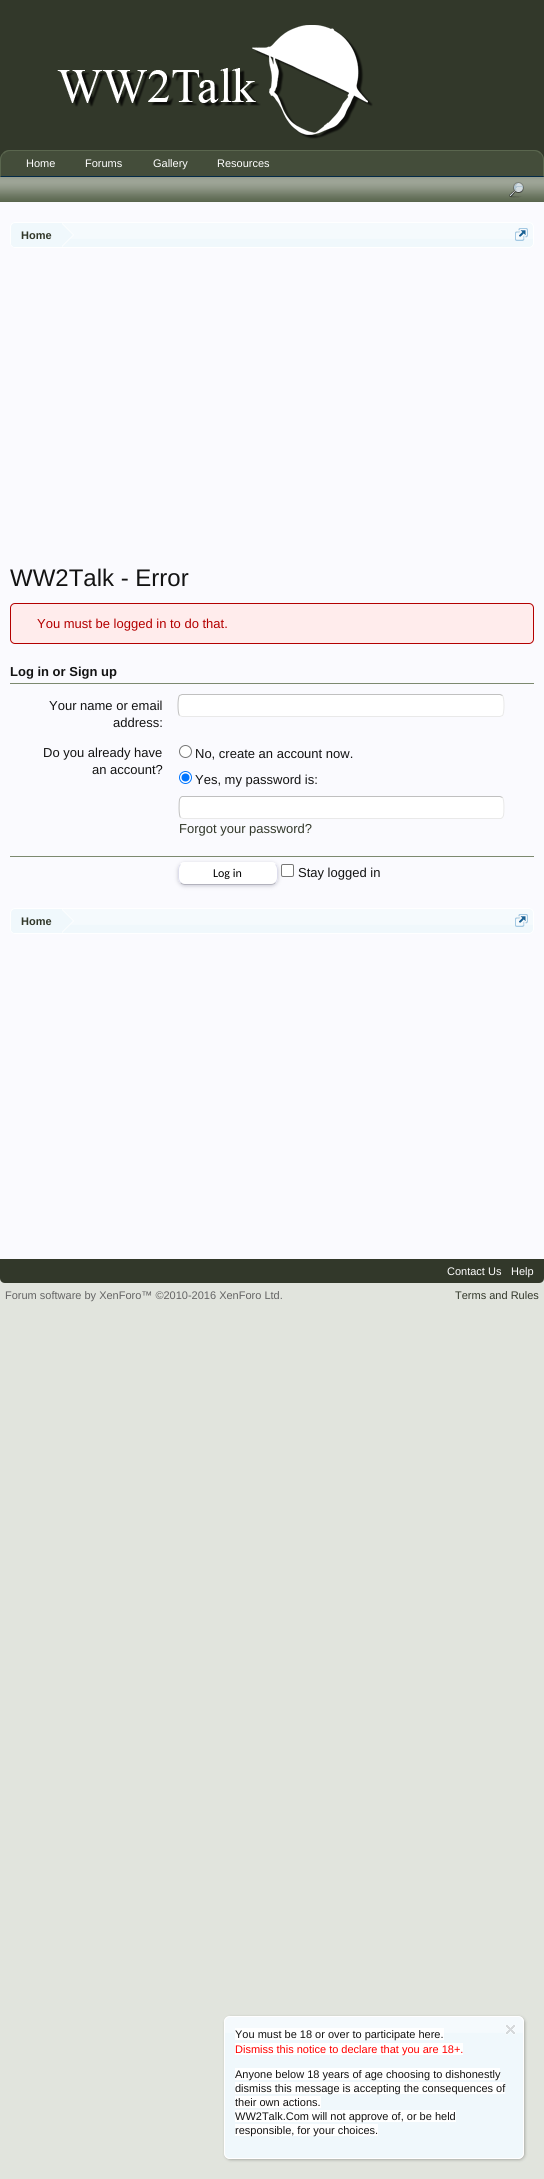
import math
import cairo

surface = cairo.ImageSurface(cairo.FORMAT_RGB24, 544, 2179)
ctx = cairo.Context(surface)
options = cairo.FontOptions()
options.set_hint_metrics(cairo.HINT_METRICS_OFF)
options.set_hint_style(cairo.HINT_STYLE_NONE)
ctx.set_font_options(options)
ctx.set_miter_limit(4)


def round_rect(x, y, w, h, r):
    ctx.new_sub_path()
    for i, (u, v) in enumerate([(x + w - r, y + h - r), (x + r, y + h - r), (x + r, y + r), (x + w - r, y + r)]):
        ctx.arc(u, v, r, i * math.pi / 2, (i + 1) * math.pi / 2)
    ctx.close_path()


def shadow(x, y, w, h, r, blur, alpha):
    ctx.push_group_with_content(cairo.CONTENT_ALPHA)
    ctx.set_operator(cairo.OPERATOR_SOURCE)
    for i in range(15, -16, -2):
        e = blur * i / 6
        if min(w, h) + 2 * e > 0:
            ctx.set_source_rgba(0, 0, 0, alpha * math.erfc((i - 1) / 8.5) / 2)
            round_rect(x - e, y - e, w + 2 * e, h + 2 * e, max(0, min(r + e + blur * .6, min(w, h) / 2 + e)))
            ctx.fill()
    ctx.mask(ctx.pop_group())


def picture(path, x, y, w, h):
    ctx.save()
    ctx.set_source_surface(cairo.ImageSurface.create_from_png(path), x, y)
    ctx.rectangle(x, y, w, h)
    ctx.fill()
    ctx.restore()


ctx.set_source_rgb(0.882, 0.894, 0.867)
ctx.paint()
ctx.set_source_rgb(0.196, 0.22, 0.165)
ctx.rectangle(0, 0, 544, 160)
ctx.fill()
picture("img1.png", 57, 25, 316, 114)
ctx.set_source_rgb(0.267, 0.302, 0.227)
ctx.new_path()
ctx.move_to(10, 150)
ctx.line_to(534, 150)
ctx.curve_to(539.5, 150, 544, 154.5, 544, 160)
ctx.line_to(544, 177)
ctx.line_to(0, 177)
ctx.line_to(0, 160)
ctx.curve_to(0, 154.5, 4.5, 150, 10, 150)
ctx.close_path()
ctx.fill()
ctx.set_source_rgb(0.353, 0.4, 0.306)
ctx.new_path()
ctx.move_to(10, 150)
ctx.curve_to(7, 150, 4, 151, 3, 153)
ctx.line_to(4, 154)
ctx.curve_to(5, 152, 8, 151, 10, 151)
ctx.line_to(534, 151)
ctx.curve_to(536, 151, 539, 152, 540, 154)
ctx.line_to(541, 153)
ctx.curve_to(540, 151, 537, 150, 534, 150)
ctx.close_path()
ctx.fill()
ctx.new_path()
ctx.move_to(544, 177)
ctx.line_to(544, 160)
ctx.curve_to(544, 157, 543, 154.5, 541, 153)
ctx.line_to(540.5, 153.5)
ctx.curve_to(542, 155, 543, 157.5, 543, 160)
ctx.line_to(543, 176)
ctx.close_path()
ctx.fill()
ctx.set_source_rgb(0.012, 0.165, 0.275)
ctx.new_path()
ctx.move_to(544, 177)
ctx.line_to(543, 176)
ctx.line_to(1, 176)
ctx.line_to(0, 177)
ctx.close_path()
ctx.fill()
ctx.set_source_rgb(0.353, 0.4, 0.306)
ctx.new_path()
ctx.move_to(0, 177)
ctx.line_to(1, 176)
ctx.line_to(1, 160)
ctx.curve_to(1, 157.5, 2, 155, 3.5, 153.5)
ctx.line_to(3, 153)
ctx.curve_to(1, 154.5, 0, 157, 0, 160)
ctx.close_path()
ctx.fill()
ctx.select_font_face("Liberation Sans")
ctx.set_font_size(11)
ctx.set_source_rgb(1, 1, 1)
ctx.move_to(26, 167)
ctx.show_text("Home")
ctx.move_to(85, 167)
ctx.show_text("Forums")
ctx.move_to(153, 167)
ctx.show_text("Gallery")
ctx.move_to(217, 167)
ctx.show_text("Resources")
ctx.set_source_rgb(0.353, 0.4, 0.306)
ctx.rectangle(0, 177, 544, 25)
ctx.fill()
picture("img2.png", 0, 177, 544, 24)
picture("img3.png", 509, 182, 15, 16)
ctx.set_source_rgb(0.98, 0.98, 0.996)
ctx.rectangle(0, 202, 544, 1057)
ctx.fill()
ctx.set_source_rgb(0.941, 0.969, 0.988)
round_rect(10, 222, 524, 26, 5)
ctx.fill()
picture("img4.png", 10, 223, 524, 16)
round_rect(10.5, 222.5, 523, 25, 4.5)
ctx.set_source_rgb(1, 1, 1)
ctx.set_line_width(1)
ctx.stroke()
ctx.save()
round_rect(11, 223, 522, 24, 4)
ctx.clip()
ctx.set_source_rgb(0.941, 0.969, 0.988)
ctx.new_path()
ctx.move_to(16, 223)
ctx.line_to(62, 223)
ctx.line_to(62, 248)
ctx.line_to(16, 248)
ctx.curve_to(13, 248, 11, 246, 11, 243)
ctx.line_to(11, 228)
ctx.curve_to(11, 225, 13, 223, 16, 223)
ctx.close_path()
ctx.fill()
ctx.restore()
ctx.select_font_face("Liberation Sans", cairo.FONT_SLANT_NORMAL, cairo.FONT_WEIGHT_BOLD)
ctx.set_source_rgb(0.196, 0.22, 0.165)
ctx.move_to(21, 239)
ctx.show_text("Home")
ctx.set_source_rgb(1, 1, 1)
ctx.new_path()
ctx.move_to(62, 247)
ctx.line_to(62, 223)
ctx.line_to(74, 235)
ctx.close_path()
ctx.fill()
ctx.set_source_rgb(0.941, 0.969, 0.988)
ctx.new_path()
ctx.move_to(61, 247)
ctx.line_to(61, 223)
ctx.line_to(73, 235)
ctx.close_path()
ctx.fill()
picture("img5.png", 515, 228, 13, 13)
ctx.select_font_face("Liberation Sans")
ctx.set_font_size(24)
ctx.set_source_rgb(0.078, 0.078, 0.078)
ctx.move_to(10, 586)
ctx.show_text("WW2Talk - Error")
ctx.set_source_rgb(1, 0.922, 0.922)
round_rect(10.5, 603.5, 523, 40, 4.5)
ctx.fill_preserve()
ctx.set_source_rgb(0.706, 0, 0)
ctx.stroke()
ctx.set_font_size(13)
ctx.move_to(37, 628)
ctx.show_text("You must be logged in to do that.")
ctx.set_source_rgb(0.486, 0.537, 0.435)
ctx.rectangle(10, 683, 524, 1)
ctx.fill()
ctx.select_font_face("Liberation Sans", cairo.FONT_SLANT_NORMAL, cairo.FONT_WEIGHT_BOLD)
ctx.set_source_rgb(0.078, 0.078, 0.078)
ctx.move_to(10, 676)
ctx.show_text("Log in or Sign up")
ctx.select_font_face("Liberation Sans")
ctx.move_to(49, 710)
ctx.show_text("Your name or email")
ctx.move_to(113, 727)
ctx.show_text("address:")
ctx.set_source_rgb(1, 1, 1)
round_rect(178, 694, 326, 23, 4)
ctx.fill()
ctx.new_path()
ctx.move_to(502.5, 695.5)
ctx.curve_to(504.5, 697.5, 504.5, 713.5, 502.5, 715.5)
ctx.line_to(500, 716.5)
ctx.line_to(182, 716.5)
ctx.line_to(179.5, 715.5)
ctx.set_source_rgb(0.914, 0.914, 0.914)
ctx.stroke()
ctx.new_path()
ctx.move_to(179.5, 715.5)
ctx.curve_to(177.5, 713.5, 177.5, 697.5, 179.5, 695.5)
ctx.line_to(182, 694.5)
ctx.line_to(500, 694.5)
ctx.line_to(502.5, 695.5)
ctx.set_source_rgb(0.753, 0.753, 0.753)
ctx.stroke()
ctx.set_source_rgb(0.078, 0.078, 0.078)
ctx.move_to(43, 757)
ctx.show_text("Do you already have")
ctx.move_to(92, 774)
ctx.show_text("an account?")
ctx.set_source_rgb(1, 1, 1)
ctx.new_path()
ctx.arc(185.5, 751.5, 6, 0, 2 * math.pi)
ctx.fill_preserve()
ctx.set_source_rgb(0.463, 0.463, 0.463)
ctx.stroke()
ctx.set_source_rgb(0.078, 0.078, 0.078)
ctx.move_to(195, 758)
ctx.show_text("No, create an account now.")
ctx.set_source_rgb(1, 1, 1)
ctx.new_path()
ctx.arc(185.5, 777.5, 6, 0, 2 * math.pi)
ctx.fill_preserve()
ctx.set_source_rgb(0, 0.459, 1)
ctx.stroke()
ctx.arc(185.5, 777.5, 4, 0, 2 * math.pi)
ctx.fill()
ctx.set_source_rgb(0.078, 0.078, 0.078)
ctx.move_to(195, 784)
ctx.show_text("Yes, my password is:")
ctx.set_source_rgb(1, 1, 1)
round_rect(179, 796, 325, 23, 4)
ctx.fill()
ctx.new_path()
ctx.move_to(502.5, 797.5)
ctx.curve_to(504.5, 799.5, 504, 813.5, 503.5, 815.5)
ctx.curve_to(503, 817, 502, 818, 501, 818.5)
ctx.line_to(183, 818.5)
ctx.line_to(180.5, 817.5)
ctx.set_source_rgb(0.914, 0.914, 0.914)
ctx.stroke()
ctx.new_path()
ctx.move_to(180.5, 817.5)
ctx.curve_to(178.5, 815.5, 179, 801.5, 179.5, 799.5)
ctx.curve_to(180, 798, 181, 797, 182, 796.5)
ctx.line_to(500, 796.5)
ctx.line_to(502.5, 797.5)
ctx.set_source_rgb(0.753, 0.753, 0.753)
ctx.stroke()
ctx.set_source_rgb(0.196, 0.22, 0.165)
ctx.move_to(179, 833)
ctx.show_text("Forgot your password?")
ctx.set_source_rgb(0.486, 0.537, 0.435)
ctx.rectangle(10, 856, 524, 1)
ctx.fill()
ctx.set_source_rgb(1, 1, 1)
round_rect(281.5, 864.5, 12, 12, 1.5)
ctx.fill_preserve()
ctx.set_source_rgb(0.463, 0.463, 0.463)
ctx.stroke()
ctx.set_source_rgb(0.784, 0.784, 0.824)
shadow(178, 863, 100, 23, 7, 2, 1)
ctx.set_source_rgb(1, 1, 1)
round_rect(178, 862, 100, 23, 7)
ctx.fill()
ctx.new_path()
ctx.move_to(180.5, 864.5)
ctx.curve_to(181.5, 863, 183.5, 862.5, 185, 862.5)
ctx.line_to(271, 862.5)
ctx.curve_to(272.5, 862.5, 274.5, 863, 275.5, 864.5)
ctx.stroke()
ctx.new_path()
ctx.move_to(275.5, 864.5)
ctx.curve_to(278, 867, 277.5, 870.5, 277.5, 873.5)
ctx.curve_to(277.5, 876.5, 278, 880, 275.5, 882.5)
ctx.set_source_rgb(0.867, 0.867, 0.922)
ctx.stroke()
ctx.new_path()
ctx.move_to(275.5, 882.5)
ctx.curve_to(274.5, 884, 272.5, 884.5, 271, 884.5)
ctx.line_to(185, 884.5)
ctx.curve_to(183.5, 884.5, 181.5, 884, 180.5, 882.5)
ctx.set_source_rgb(0.702, 0.702, 0.741)
ctx.stroke()
ctx.new_path()
ctx.move_to(180.5, 882.5)
ctx.curve_to(178, 880, 178.5, 876.5, 178.5, 873.5)
ctx.curve_to(178.5, 870.5, 178, 867, 180.5, 864.5)
ctx.set_source_rgb(0.867, 0.867, 0.922)
ctx.stroke()
ctx.select_font_face("Carlito")
ctx.set_font_size(12)
ctx.set_source_rgb(0, 0, 0)
ctx.move_to(213, 877)
ctx.show_text("Log in")
ctx.select_font_face("Liberation Sans")
ctx.set_font_size(13)
ctx.set_source_rgb(0.078, 0.078, 0.078)
ctx.move_to(298, 877)
ctx.show_text("Stay logged in")
ctx.set_source_rgb(0.941, 0.969, 0.988)
round_rect(10, 908, 524, 26, 5)
ctx.fill()
picture("img4.png", 10, 909, 524, 16)
round_rect(10.5, 908.5, 523, 25, 4.5)
ctx.set_source_rgb(1, 1, 1)
ctx.stroke()
ctx.save()
round_rect(11, 909, 522, 24, 4)
ctx.clip()
ctx.set_source_rgb(0.941, 0.969, 0.988)
ctx.new_path()
ctx.move_to(16, 909)
ctx.line_to(62, 909)
ctx.line_to(62, 934)
ctx.line_to(16, 934)
ctx.curve_to(13, 934, 11, 932, 11, 929)
ctx.line_to(11, 914)
ctx.curve_to(11, 911, 13, 909, 16, 909)
ctx.close_path()
ctx.fill()
ctx.restore()
ctx.select_font_face("Liberation Sans", cairo.FONT_SLANT_NORMAL, cairo.FONT_WEIGHT_BOLD)
ctx.set_font_size(11)
ctx.set_source_rgb(0.196, 0.22, 0.165)
ctx.move_to(21, 925)
ctx.show_text("Home")
ctx.set_source_rgb(1, 1, 1)
ctx.new_path()
ctx.move_to(62, 933)
ctx.line_to(62, 909)
ctx.line_to(74, 921)
ctx.close_path()
ctx.fill()
ctx.set_source_rgb(0.941, 0.969, 0.988)
ctx.new_path()
ctx.move_to(61, 933)
ctx.line_to(61, 909)
ctx.line_to(73, 921)
ctx.close_path()
ctx.fill()
picture("img5.png", 515, 914, 13, 13)
ctx.set_source_rgb(0, 0, 0)
shadow(225, 2017, 300, 143, 6, 1.5, 0.25)
ctx.set_source_rgb(0.941, 0.969, 0.988)
round_rect(224, 2016, 300, 143, 6)
ctx.fill()
picture("img6.png", 224, 2017, 300, 16)
round_rect(224.5, 2016.5, 299, 142, 5.5)
ctx.set_source_rgb(1, 1, 1)
ctx.stroke()
ctx.rectangle(235, 2028, 209, 12)
ctx.fill()
ctx.select_font_face("Liberation Sans")
ctx.set_source_rgb(0.078, 0.078, 0.078)
ctx.move_to(235, 2038)
ctx.show_text("You must be 18 or over to participate here.")
ctx.set_source_rgb(1, 1, 1)
ctx.rectangle(235, 2043, 228, 12)
ctx.fill()
ctx.set_source_rgb(1, 0, 0)
ctx.move_to(235, 2053)
ctx.show_text("Dismiss this notice to declare that you are 18+.")
ctx.set_source_rgb(1, 1, 1)
ctx.rectangle(235, 2068, 265, 12)
ctx.fill()
ctx.set_source_rgb(0.078, 0.078, 0.078)
ctx.move_to(235, 2078)
ctx.show_text("Anyone below 18 years of age choosing to dishonestly")
ctx.set_source_rgb(1, 1, 1)
ctx.rectangle(235, 2082, 270, 12)
ctx.fill()
ctx.set_source_rgb(0.078, 0.078, 0.078)
ctx.move_to(235, 2092)
ctx.show_text("dismiss this message is accepting the consequences of")
ctx.set_source_rgb(1, 1, 1)
ctx.rectangle(235, 2096, 86, 12)
ctx.fill()
ctx.set_source_rgb(0.078, 0.078, 0.078)
ctx.move_to(235, 2106)
ctx.show_text("their own actions.")
ctx.set_source_rgb(1, 1, 1)
ctx.rectangle(235, 2110, 221, 12)
ctx.fill()
ctx.set_source_rgb(0.078, 0.078, 0.078)
ctx.move_to(235, 2120)
ctx.show_text("WW2Talk.Com will not approve of, or be held")
ctx.set_source_rgb(1, 1, 1)
ctx.rectangle(235, 2124, 143, 12)
ctx.fill()
ctx.set_source_rgb(0.078, 0.078, 0.078)
ctx.move_to(235, 2134)
ctx.show_text("responsible, for your choices.")
picture("img7.png", 505, 2025, 11, 10)
ctx.set_source_rgb(0.196, 0.22, 0.165)
ctx.new_path()
ctx.move_to(0, 1259)
ctx.line_to(544, 1259)
ctx.line_to(544, 1278)
ctx.curve_to(544, 1281, 542, 1283, 539, 1283)
ctx.line_to(5, 1283)
ctx.curve_to(2, 1283, 0, 1281, 0, 1278)
ctx.close_path()
ctx.fill()
ctx.set_source_rgb(1, 1, 1)
ctx.move_to(447, 1275)
ctx.show_text("Contact Us")
ctx.move_to(511, 1275)
ctx.show_text("Help")
ctx.set_source_rgb(0.392, 0.392, 0.392)
ctx.move_to(5, 1299)
ctx.show_text("Forum software by XenForo™ ©2010-2016 XenForo Ltd.")
ctx.set_source_rgb(0.196, 0.22, 0.165)
ctx.move_to(455, 1299)
ctx.show_text("Terms and Rules")
surface.write_to_png("page.png")
